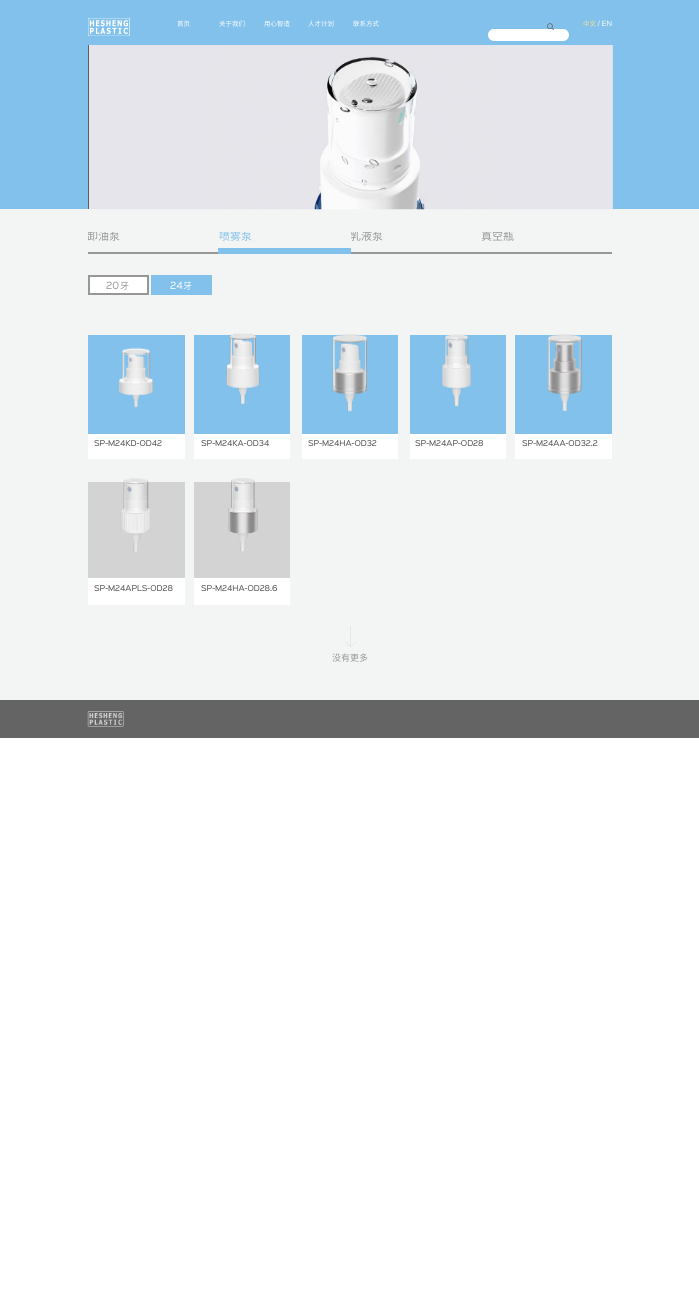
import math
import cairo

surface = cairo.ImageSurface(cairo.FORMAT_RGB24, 699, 1309)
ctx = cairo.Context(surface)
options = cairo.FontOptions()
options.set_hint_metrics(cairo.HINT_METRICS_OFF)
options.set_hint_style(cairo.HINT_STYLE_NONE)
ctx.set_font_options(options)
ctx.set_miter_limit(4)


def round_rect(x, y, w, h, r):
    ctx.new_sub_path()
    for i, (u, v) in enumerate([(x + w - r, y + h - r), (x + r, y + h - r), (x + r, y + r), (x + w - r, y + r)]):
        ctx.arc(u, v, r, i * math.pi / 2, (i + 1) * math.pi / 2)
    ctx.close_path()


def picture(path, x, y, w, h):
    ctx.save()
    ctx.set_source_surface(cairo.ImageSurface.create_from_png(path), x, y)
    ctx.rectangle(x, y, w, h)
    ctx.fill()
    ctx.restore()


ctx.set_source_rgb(1, 1, 1)
ctx.paint()
ctx.set_source_rgb(0.51, 0.757, 0.918)
ctx.rectangle(0, 0, 699, 209)
ctx.fill()
picture("img1.png", 88, 18, 42, 18)
ctx.select_font_face("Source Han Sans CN")
ctx.set_font_size(6.5)
ctx.set_source_rgb(1, 1, 1)
ctx.move_to(177, 26)
ctx.show_text("首页")
ctx.move_to(219, 26)
ctx.show_text("关于我们")
ctx.move_to(264, 26)
ctx.show_text("用心智造")
ctx.move_to(308, 26)
ctx.show_text("人才计划")
ctx.move_to(353, 26)
ctx.show_text("联系方式")
round_rect(488, 29, 81, 12, 6)
ctx.fill()
picture("img2.png", 547, 23, 7, 7)
ctx.set_source_rgb(1, 0.886, 0.576)
ctx.move_to(583, 26)
ctx.show_text("中文")
ctx.select_font_face("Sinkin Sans")
ctx.set_source_rgb(1, 1, 1)
ctx.move_to(598, 26)
ctx.show_text("/ EN")
ctx.set_source_rgb(0, 0, 0)
ctx.rectangle(88, 45, 1, 164)
ctx.fill()
ctx.set_source_rgb(0.953, 0.957, 0.957)
ctx.rectangle(0, 209, 699, 491)
ctx.fill()
picture("img3.png", 88, 45, 525, 165)
ctx.save()
ctx.rectangle(88, 232, 130, 22)
ctx.clip()
ctx.select_font_face("Source Han Sans CN")
ctx.set_font_size(11)
ctx.set_source_rgb(0.592, 0.592, 0.592)
ctx.move_to(87, 240)
ctx.show_text("卸油泵")
ctx.restore()
ctx.save()
ctx.rectangle(218, 232, 133, 22)
ctx.clip()
ctx.select_font_face("Source Han Sans CN")
ctx.set_font_size(11)
ctx.set_source_rgb(0.51, 0.757, 0.918)
ctx.move_to(219, 240)
ctx.show_text("喷雾泵")
ctx.restore()
ctx.set_source_rgb(0.592, 0.592, 0.592)
ctx.rectangle(88, 252, 524, 2)
ctx.fill()
ctx.set_source_rgb(0.51, 0.757, 0.918)
ctx.rectangle(218, 248, 133, 6)
ctx.fill()
ctx.save()
ctx.rectangle(351, 232, 131, 22)
ctx.clip()
ctx.select_font_face("Source Han Sans CN")
ctx.set_font_size(11)
ctx.set_source_rgb(0.592, 0.592, 0.592)
ctx.move_to(350, 240)
ctx.show_text("乳液泵")
ctx.restore()
ctx.save()
ctx.rectangle(482, 232, 130, 22)
ctx.clip()
ctx.select_font_face("Source Han Sans CN")
ctx.set_font_size(11)
ctx.set_source_rgb(0.592, 0.592, 0.592)
ctx.move_to(481, 240)
ctx.show_text("真空瓶")
ctx.restore()
ctx.set_source_rgb(1, 1, 1)
ctx.rectangle(89, 276, 59, 18)
ctx.fill_preserve()
ctx.set_source_rgb(0.592, 0.592, 0.592)
ctx.stroke()
ctx.set_font_size(9)
ctx.move_to(106, 289)
ctx.show_text("20")
ctx.select_font_face("Source Han Sans CN")
ctx.move_to(120, 289)
ctx.show_text("牙")
ctx.set_source_rgb(0.51, 0.757, 0.918)
ctx.rectangle(151, 275, 61, 20)
ctx.fill()
ctx.select_font_face("Sinkin Sans")
ctx.set_source_rgb(1, 1, 1)
ctx.move_to(170, 289)
ctx.show_text("24")
ctx.select_font_face("Source Han Sans CN")
ctx.move_to(183, 289)
ctx.show_text("牙")
ctx.set_source_rgb(0.51, 0.757, 0.918)
ctx.rectangle(88, 335, 97, 99)
ctx.fill()
picture("img4.png", 118, 347, 36, 61)
ctx.set_source_rgb(1, 1, 1)
ctx.rectangle(88, 434, 97, 25)
ctx.fill()
ctx.select_font_face("Sinkin Sans")
ctx.set_font_size(7.25)
ctx.set_source_rgb(0.298, 0.286, 0.282)
ctx.move_to(94, 446)
ctx.show_text("SP-M24KD-OD42")
ctx.set_source_rgb(0.51, 0.757, 0.918)
ctx.rectangle(194, 335, 96, 99)
ctx.fill()
picture("img5.png", 226, 333, 34, 72)
ctx.set_source_rgb(1, 1, 1)
ctx.rectangle(194, 434, 96, 25)
ctx.fill()
ctx.set_source_rgb(0.298, 0.286, 0.282)
ctx.move_to(201, 446)
ctx.show_text("SP-M24KA-OD34")
ctx.set_source_rgb(0.51, 0.757, 0.918)
ctx.rectangle(302, 335, 96, 99)
ctx.fill()
picture("img6.png", 332, 334, 35, 78)
ctx.set_source_rgb(1, 1, 1)
ctx.rectangle(302, 434, 96, 25)
ctx.fill()
ctx.set_source_rgb(0.298, 0.286, 0.282)
ctx.move_to(308, 446)
ctx.show_text("SP-M24HA-OD32")
ctx.set_source_rgb(0.51, 0.757, 0.918)
ctx.rectangle(410, 335, 96, 99)
ctx.fill()
picture("img7.png", 442, 334, 29, 73)
ctx.set_source_rgb(1, 1, 1)
ctx.rectangle(410, 434, 96, 25)
ctx.fill()
ctx.set_source_rgb(0.298, 0.286, 0.282)
ctx.move_to(415, 446)
ctx.show_text("SP-M24AP-OD28")
ctx.set_source_rgb(0.51, 0.757, 0.918)
ctx.rectangle(515, 335, 97, 99)
ctx.fill()
picture("img8.png", 547, 334, 35, 78)
ctx.set_source_rgb(1, 1, 1)
ctx.rectangle(515, 434, 97, 25)
ctx.fill()
ctx.set_source_rgb(0.298, 0.286, 0.282)
ctx.move_to(522, 446)
ctx.show_text("SP-M24AA-OD32.2")
ctx.set_source_rgb(0.827, 0.827, 0.827)
ctx.rectangle(88, 482, 97, 96)
ctx.fill()
picture("img9.png", 120, 478, 31, 74)
ctx.set_source_rgb(1, 1, 1)
ctx.rectangle(88, 578, 97, 27)
ctx.fill()
ctx.set_source_rgb(0.298, 0.286, 0.282)
ctx.move_to(94, 591)
ctx.show_text("SP-M24APLS-OD28")
ctx.set_source_rgb(0.827, 0.827, 0.827)
ctx.rectangle(194, 482, 96, 96)
ctx.fill()
picture("img10.png", 228, 478, 30, 74)
ctx.set_source_rgb(1, 1, 1)
ctx.rectangle(194, 578, 96, 27)
ctx.fill()
ctx.set_source_rgb(0.298, 0.286, 0.282)
ctx.move_to(201, 591)
ctx.show_text("SP-M24HA-OD28.6")
picture("img11.png", 345, 626, 11, 21)
ctx.select_font_face("Source Han Sans CN")
ctx.set_font_size(9)
ctx.set_source_rgb(0.592, 0.592, 0.592)
ctx.move_to(332, 661)
ctx.show_text("没有更多")
ctx.set_source_rgb(0.392, 0.392, 0.392)
ctx.rectangle(0, 700, 699, 38)
ctx.fill()
picture("img12.png", 87, 711, 37, 16)
surface.write_to_png("page.png")
